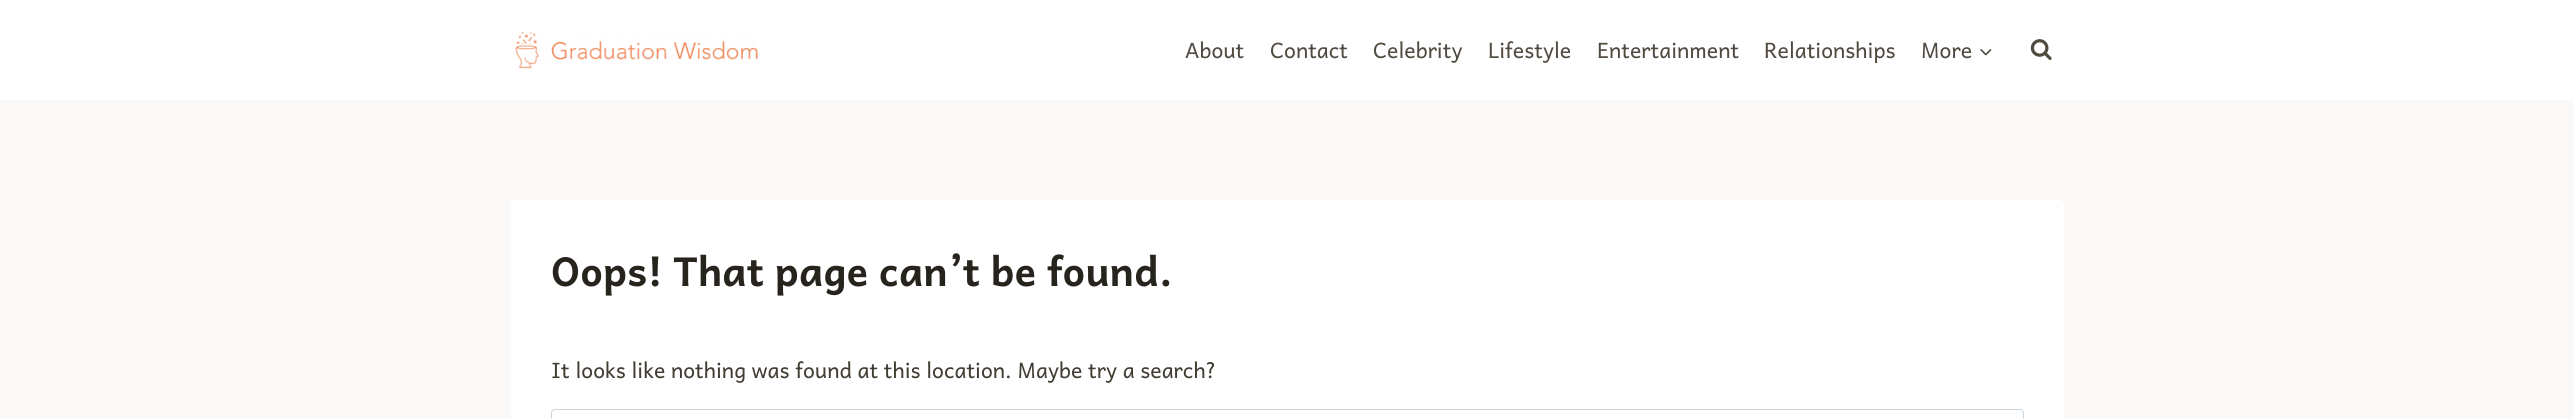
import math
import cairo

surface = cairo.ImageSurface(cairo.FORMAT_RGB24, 2574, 419)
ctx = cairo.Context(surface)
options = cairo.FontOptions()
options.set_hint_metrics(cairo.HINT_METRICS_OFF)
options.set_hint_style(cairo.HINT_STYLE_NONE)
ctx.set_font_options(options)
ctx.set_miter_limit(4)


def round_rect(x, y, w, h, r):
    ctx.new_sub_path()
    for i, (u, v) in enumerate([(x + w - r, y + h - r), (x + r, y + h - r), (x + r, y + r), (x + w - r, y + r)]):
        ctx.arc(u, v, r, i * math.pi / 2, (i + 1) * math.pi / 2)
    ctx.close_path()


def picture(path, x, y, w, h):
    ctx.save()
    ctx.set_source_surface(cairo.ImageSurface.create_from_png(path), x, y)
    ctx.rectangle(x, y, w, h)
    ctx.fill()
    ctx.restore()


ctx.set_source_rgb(0.98, 0.976, 0.969)
ctx.paint()
ctx.set_source_rgb(1, 1, 1)
ctx.rectangle(0, 0, 2574, 100)
ctx.fill()
picture("img1.png", 515, 31, 243, 38)
ctx.select_font_face("Andika")
ctx.set_font_size(21.25)
ctx.set_source_rgb(0.314, 0.29, 0.251)
ctx.move_to(1185, 58)
ctx.show_text("About")
ctx.move_to(1270, 58)
ctx.show_text("Contact")
ctx.move_to(1373, 58)
ctx.show_text("Celebrity")
ctx.move_to(1488, 58)
ctx.show_text("Lifestyle")
ctx.move_to(1597, 58)
ctx.show_text("Entertainment")
ctx.move_to(1764, 58)
ctx.show_text("Relationships")
ctx.move_to(1921, 58)
ctx.show_text("More")
picture("img2.png", 1980, 49, 12, 7)
picture("img3.png", 2030, 39, 22, 21)
ctx.set_source_rgb(1, 1, 1)
round_rect(511, 200, 1553, 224, 5)
ctx.fill()
ctx.select_font_face("Andika", cairo.FONT_SLANT_NORMAL, cairo.FONT_WEIGHT_BOLD)
ctx.set_font_size(40)
ctx.set_source_rgb(0.153, 0.141, 0.114)
ctx.move_to(551, 286)
ctx.show_text("Oops! That page can’t be found.")
ctx.select_font_face("Andika")
ctx.set_font_size(21.25)
ctx.set_source_rgb(0.259, 0.239, 0.2)
ctx.move_to(551, 378)
ctx.show_text("It looks like nothing was found at this location. Maybe try a search?")
round_rect(551.5, 409.5, 1472, 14, 3.5)
ctx.set_source_rgb(0.796, 0.835, 0.878)
ctx.set_line_width(1)
ctx.stroke()
surface.write_to_png("page.png")
